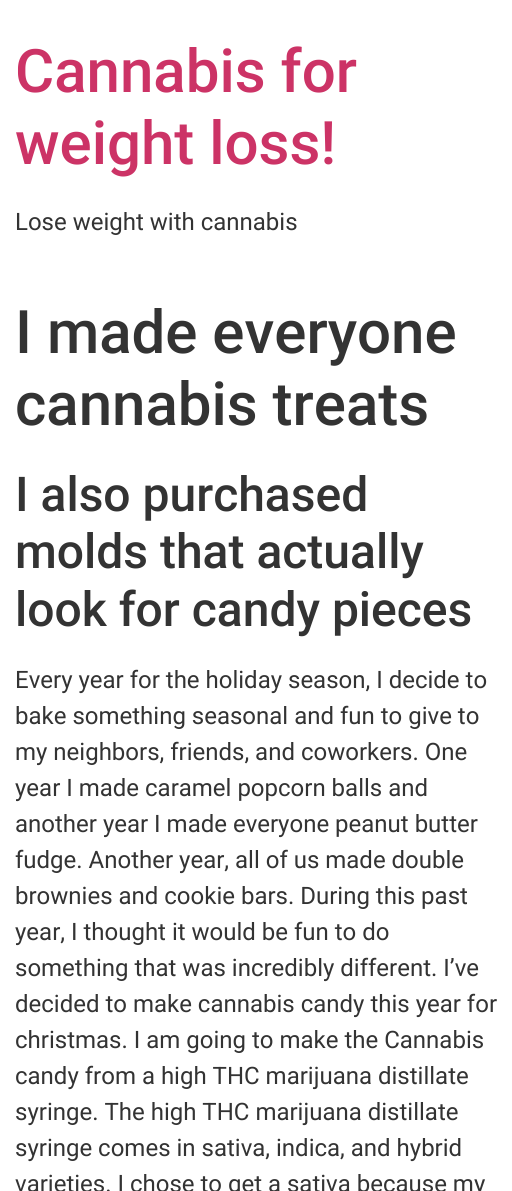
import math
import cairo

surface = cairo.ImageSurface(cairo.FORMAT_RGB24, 512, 1191)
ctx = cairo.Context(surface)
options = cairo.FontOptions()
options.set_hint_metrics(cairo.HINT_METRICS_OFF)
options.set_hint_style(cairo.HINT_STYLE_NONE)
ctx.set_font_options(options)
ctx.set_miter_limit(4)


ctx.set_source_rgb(1, 1, 1)
ctx.paint()
ctx.select_font_face("Roboto Medium")
ctx.set_font_size(60)
ctx.set_source_rgb(0.8, 0.2, 0.4)
ctx.move_to(15, 92)
ctx.show_text("Cannabis for")
ctx.move_to(15, 164)
ctx.show_text("weight loss!")
ctx.select_font_face("Roboto")
ctx.set_font_size(24)
ctx.set_source_rgb(0.2, 0.2, 0.2)
ctx.move_to(15, 230)
ctx.show_text("Lose weight with cannabis")
ctx.select_font_face("Roboto Medium")
ctx.set_font_size(60)
ctx.move_to(15, 353)
ctx.show_text("I made everyone")
ctx.move_to(15, 425)
ctx.show_text("cannabis treats")
ctx.set_font_size(48)
ctx.move_to(15, 511)
ctx.show_text("I also purchased")
ctx.move_to(15, 568)
ctx.show_text("molds that actually")
ctx.move_to(15, 626)
ctx.show_text("look for candy pieces")
ctx.select_font_face("Roboto")
ctx.set_font_size(24)
ctx.move_to(15, 688)
ctx.show_text("Every year for the holiday season, I decide to")
ctx.move_to(15, 724)
ctx.show_text("bake something seasonal and fun to give to")
ctx.move_to(15, 760)
ctx.show_text("my neighbors, friends, and coworkers. One")
ctx.move_to(15, 796)
ctx.show_text("year I made caramel popcorn balls and")
ctx.move_to(15, 832)
ctx.show_text("another year I made everyone peanut butter")
ctx.move_to(15, 868)
ctx.show_text("fudge. Another year, all of us made double")
ctx.move_to(15, 904)
ctx.show_text("brownies and cookie bars. During this past")
ctx.move_to(15, 940)
ctx.show_text("year, I thought it would be fun to do")
ctx.move_to(15, 976)
ctx.show_text("something that was incredibly different. I’ve")
ctx.move_to(15, 1012)
ctx.show_text("decided to make cannabis candy this year for")
ctx.move_to(15, 1048)
ctx.show_text("christmas. I am going to make the Cannabis")
ctx.move_to(15, 1084)
ctx.show_text("candy from a high THC marijuana distillate")
ctx.move_to(15, 1120)
ctx.show_text("syringe. The high THC marijuana distillate")
ctx.move_to(15, 1156)
ctx.show_text("syringe comes in sativa, indica, and hybrid")
ctx.move_to(15, 1192)
ctx.show_text("varieties. I chose to get a sativa because my")
surface.write_to_png("page.png")
